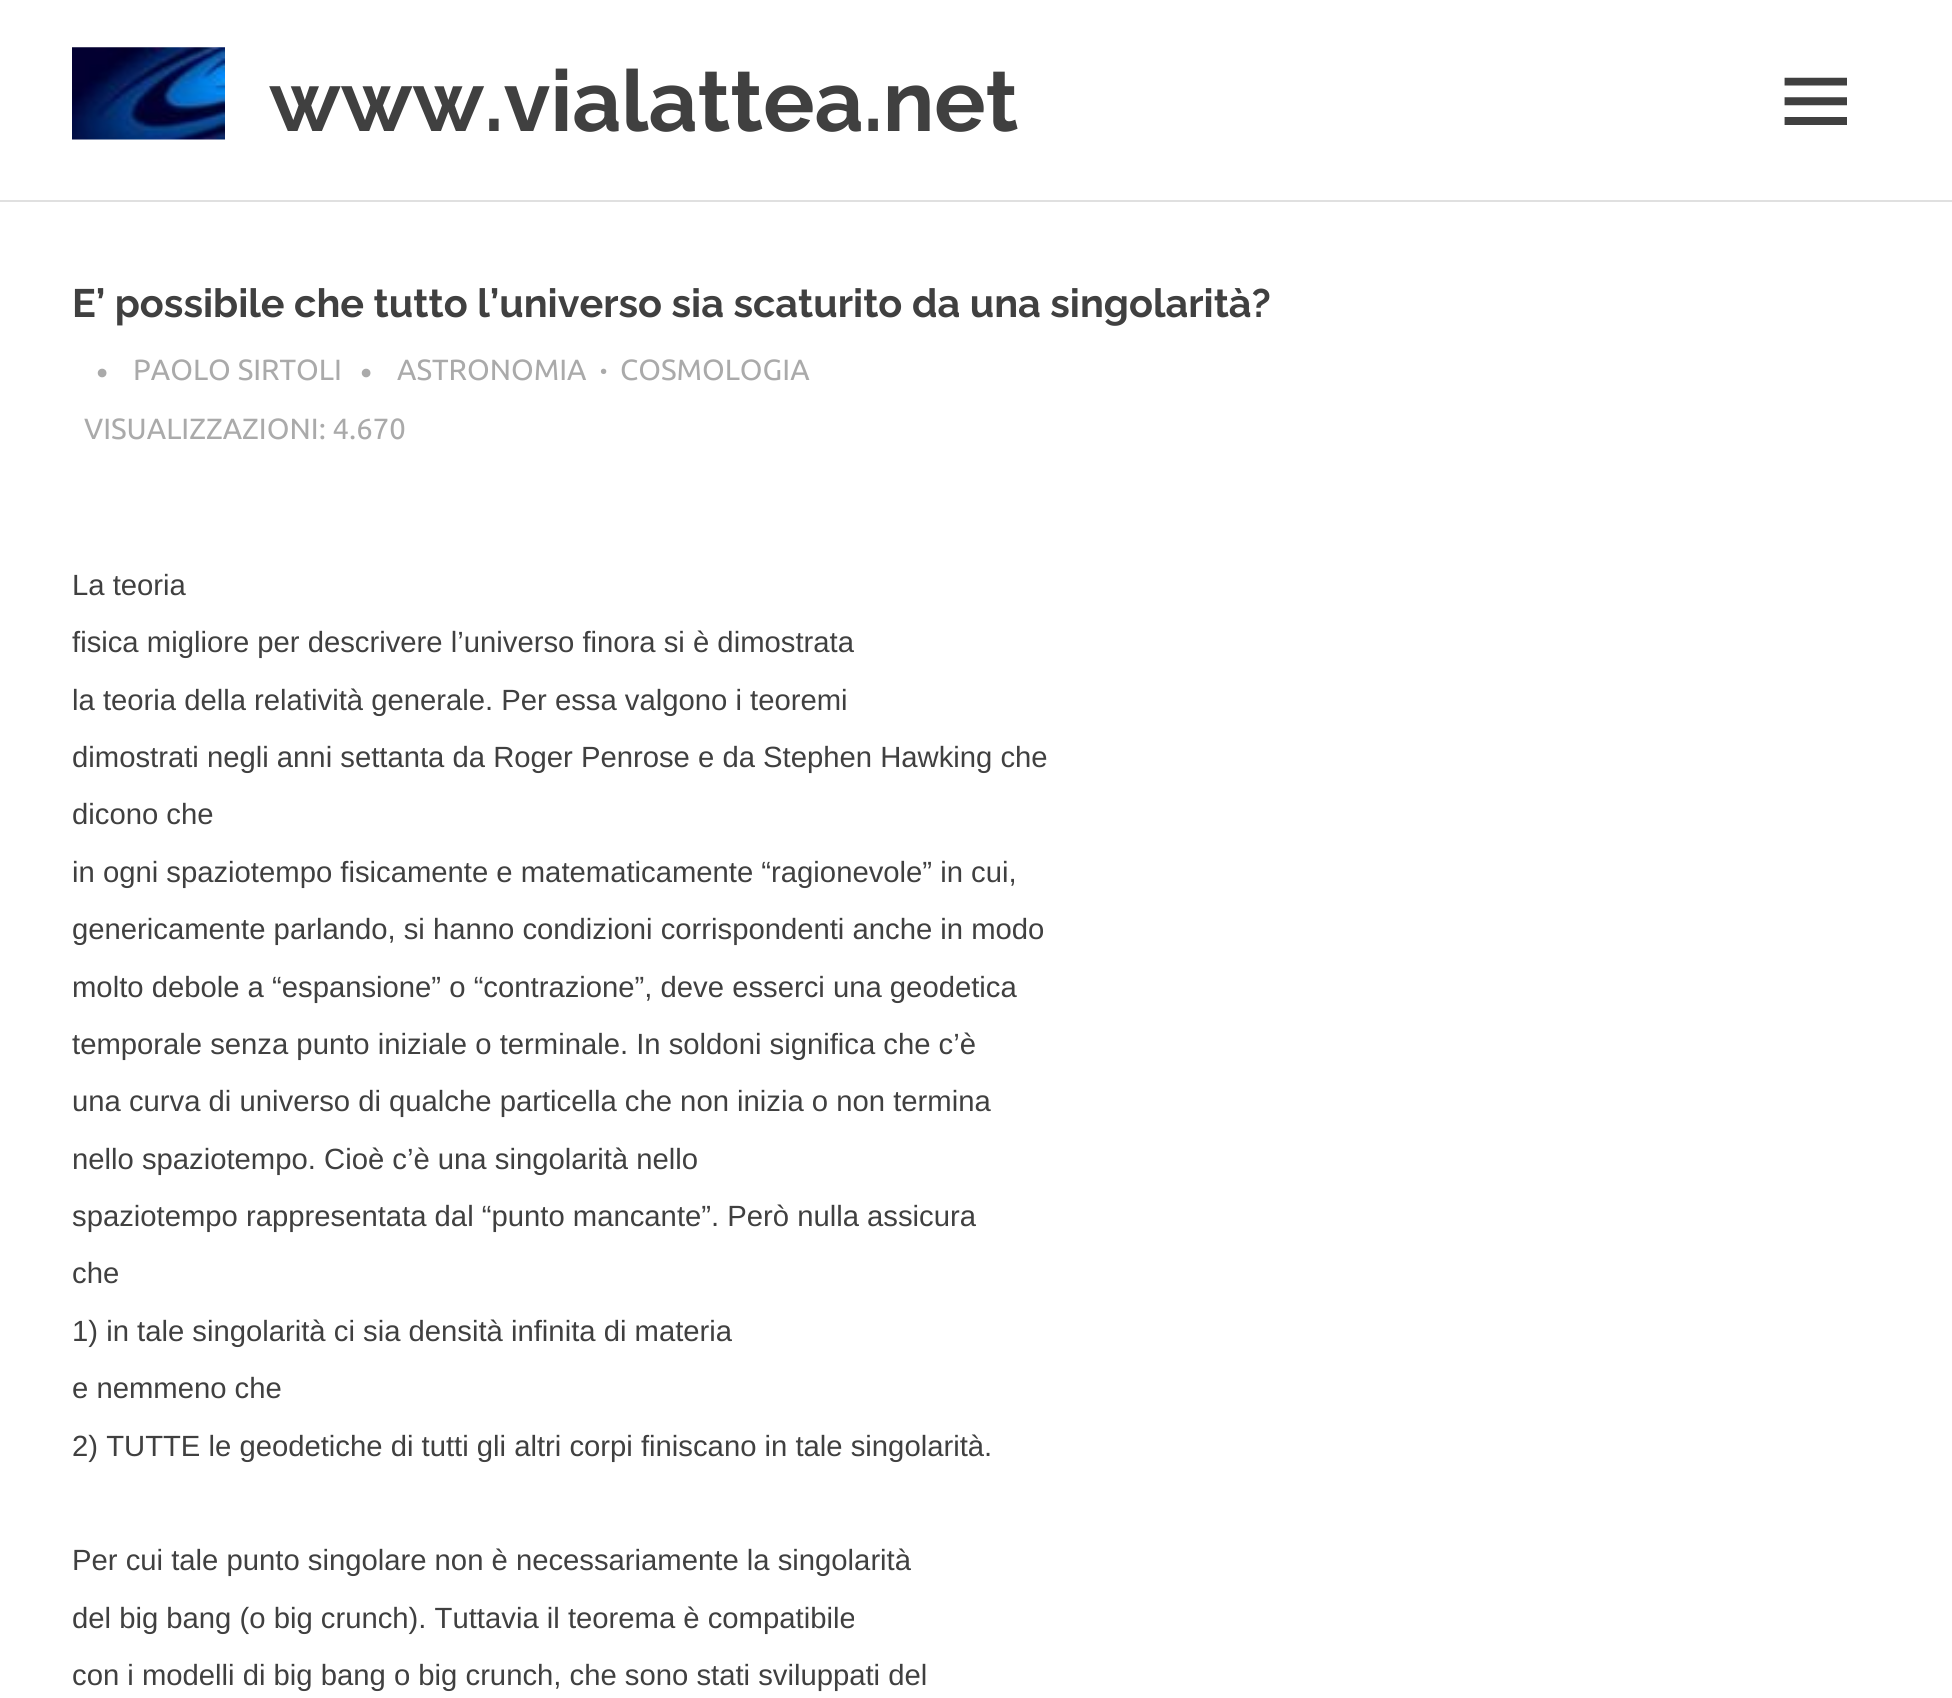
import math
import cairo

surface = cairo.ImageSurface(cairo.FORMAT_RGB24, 1952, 1698)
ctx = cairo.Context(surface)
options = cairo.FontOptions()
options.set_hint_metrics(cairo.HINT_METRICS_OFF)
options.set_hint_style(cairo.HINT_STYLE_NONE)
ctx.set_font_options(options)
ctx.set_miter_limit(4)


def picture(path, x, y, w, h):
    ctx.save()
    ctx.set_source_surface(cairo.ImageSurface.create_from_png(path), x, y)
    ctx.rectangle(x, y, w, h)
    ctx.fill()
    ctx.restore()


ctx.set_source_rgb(1, 1, 1)
ctx.paint()
ctx.set_source_rgb(0.878, 0.878, 0.878)
ctx.rectangle(0, 200, 1952, 2)
ctx.fill()
picture("img1.png", 72, 47, 153, 93)
ctx.select_font_face("Raleway", cairo.FONT_SLANT_NORMAL, cairo.FONT_WEIGHT_BOLD)
ctx.set_font_size(85.5)
ctx.set_source_rgb(0.251, 0.251, 0.251)
ctx.move_to(269, 131)
ctx.show_text("www.vialattea.net")
picture("img2.png", 1784, 77, 63, 48)
ctx.set_font_size(39.6)
ctx.move_to(72, 317)
ctx.show_text("E’ possibile che tutto l’universo sia scaturito da una singolarità?")
ctx.select_font_face("Ubuntu")
ctx.set_font_size(29.25)
ctx.set_source_rgb(0.667, 0.667, 0.667)
ctx.move_to(397, 380)
ctx.show_text("ASTRONOMIA")
ctx.select_font_face("Ubuntu", cairo.FONT_SLANT_NORMAL, cairo.FONT_WEIGHT_BOLD)
ctx.move_to(600, 380)
ctx.show_text("·")
ctx.select_font_face("Ubuntu")
ctx.move_to(620, 380)
ctx.show_text("COSMOLOGIA")
ctx.move_to(84, 439)
ctx.show_text("VISUALIZZAZIONI: 4.670")
ctx.set_font_size(34)
ctx.move_to(96, 385)
ctx.show_text("•")
ctx.set_font_size(29.25)
ctx.move_to(133, 380)
ctx.show_text("PAOLO SIRTOLI")
ctx.set_font_size(34)
ctx.move_to(360, 385)
ctx.show_text("•")
ctx.select_font_face("Liberation Sans")
ctx.set_font_size(29.25)
ctx.set_source_rgb(0.251, 0.251, 0.251)
ctx.move_to(72, 595)
ctx.show_text("La teoria")
ctx.move_to(72, 652)
ctx.show_text("fisica migliore per descrivere l’universo finora si è dimostrata")
ctx.move_to(72, 710)
ctx.show_text("la teoria della relatività generale. Per essa valgono i teoremi")
ctx.move_to(72, 767)
ctx.show_text("dimostrati negli anni settanta da Roger Penrose e da Stephen Hawking che")
ctx.move_to(72, 824)
ctx.show_text("dicono che")
ctx.move_to(72, 882)
ctx.show_text("in ogni spaziotempo fisicamente e matematicamente “ragionevole” in cui,")
ctx.move_to(72, 939)
ctx.show_text("genericamente parlando, si hanno condizioni corrispondenti anche in modo")
ctx.move_to(72, 997)
ctx.show_text("molto debole a “espansione” o “contrazione”, deve esserci una geodetica")
ctx.move_to(72, 1054)
ctx.show_text("temporale senza punto iniziale o terminale. In soldoni significa che c’è")
ctx.move_to(72, 1111)
ctx.show_text("una curva di universo di qualche particella che non inizia o non termina")
ctx.move_to(72, 1169)
ctx.show_text("nello spaziotempo. Cioè c’è una singolarità nello")
ctx.move_to(72, 1226)
ctx.show_text("spaziotempo rappresentata dal “punto mancante”. Però nulla assicura")
ctx.move_to(72, 1283)
ctx.show_text("che")
ctx.move_to(72, 1341)
ctx.show_text("1) in tale singolarità ci sia densità infinita di materia")
ctx.move_to(72, 1398)
ctx.show_text("e nemmeno che")
ctx.move_to(72, 1456)
ctx.show_text("2) TUTTE le geodetiche di tutti gli altri corpi finiscano in tale singolarità.")
ctx.move_to(72, 1570)
ctx.show_text("Per cui tale punto singolare non è necessariamente la singolarità")
ctx.move_to(72, 1628)
ctx.show_text("del big bang (o big crunch). Tuttavia il teorema è compatibile")
ctx.move_to(72, 1685)
ctx.show_text("con i modelli di big bang o big crunch, che sono stati sviluppati del")
surface.write_to_png("page.png")
